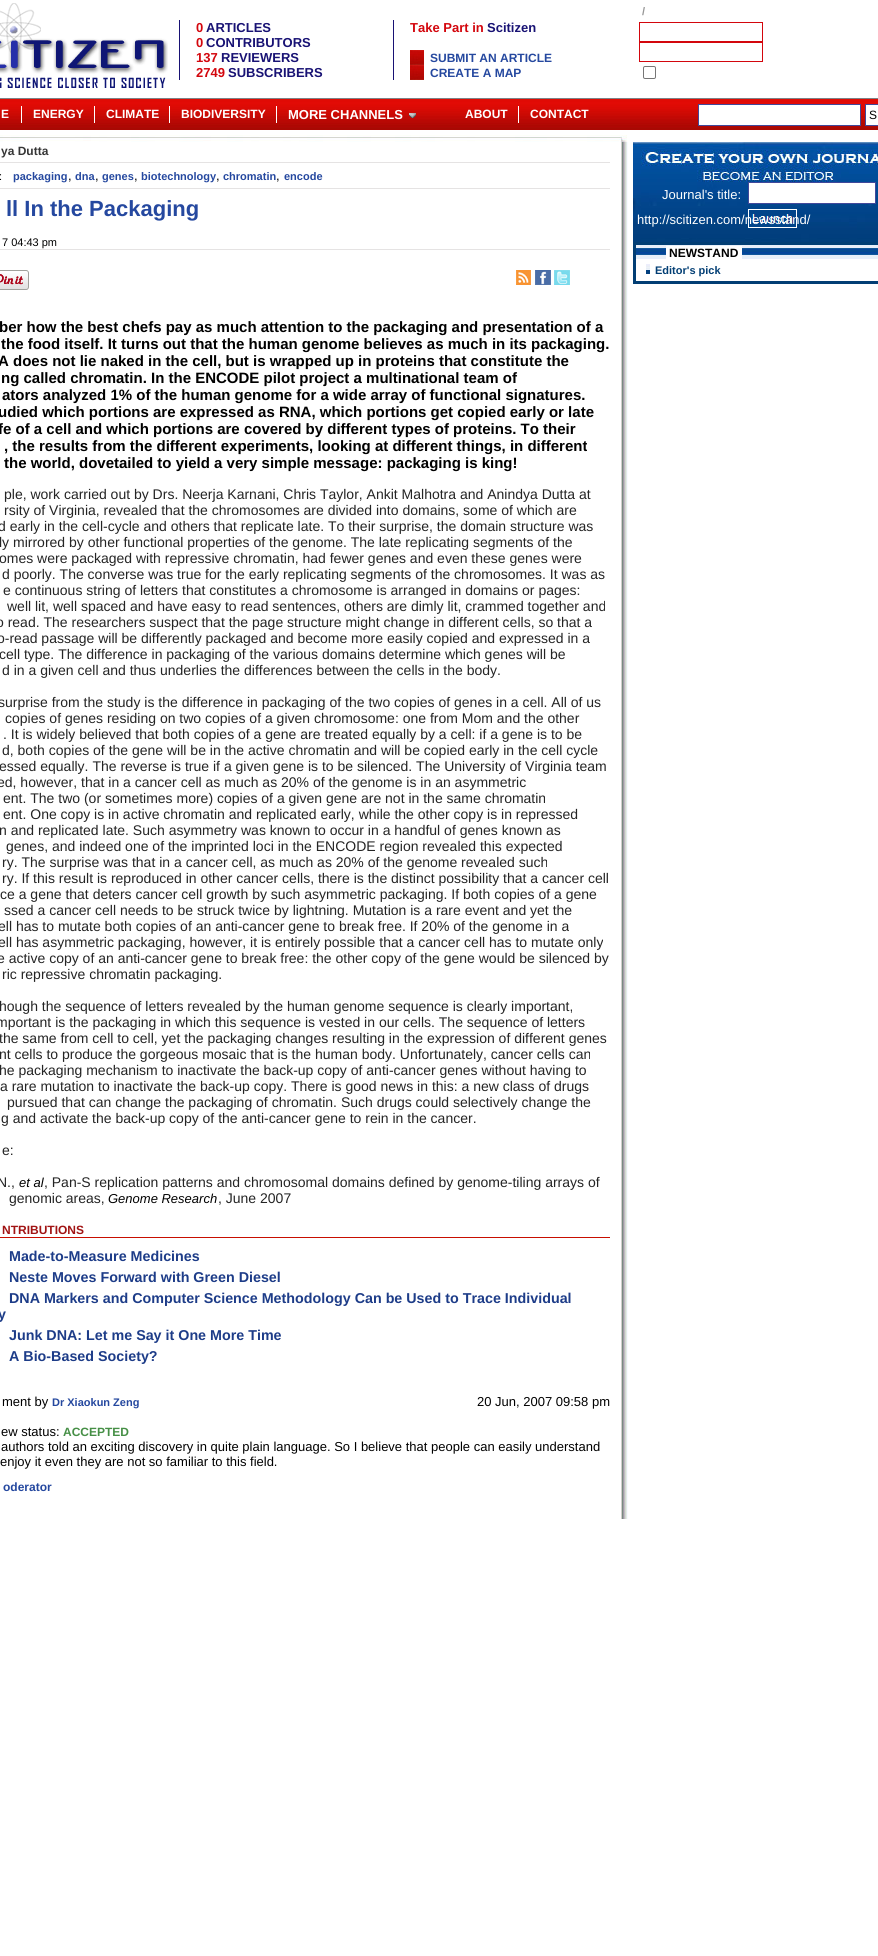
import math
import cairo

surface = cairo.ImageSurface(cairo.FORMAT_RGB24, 878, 1956)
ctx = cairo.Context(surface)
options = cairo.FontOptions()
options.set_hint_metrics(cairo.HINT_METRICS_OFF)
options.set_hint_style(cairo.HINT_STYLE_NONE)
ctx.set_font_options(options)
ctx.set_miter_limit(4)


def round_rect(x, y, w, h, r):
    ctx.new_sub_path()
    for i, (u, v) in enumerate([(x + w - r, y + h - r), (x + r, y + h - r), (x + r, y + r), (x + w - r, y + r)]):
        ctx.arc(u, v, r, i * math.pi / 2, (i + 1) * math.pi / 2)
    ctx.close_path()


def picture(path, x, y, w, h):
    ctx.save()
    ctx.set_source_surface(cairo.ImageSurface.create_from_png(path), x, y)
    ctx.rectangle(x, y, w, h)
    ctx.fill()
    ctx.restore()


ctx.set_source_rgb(1, 1, 1)
ctx.paint()
picture("img1.png", 0, 3, 168, 85)
ctx.select_font_face("Liberation Sans", cairo.FONT_SLANT_NORMAL, cairo.FONT_WEIGHT_BOLD)
ctx.set_font_size(11)
ctx.set_source_rgb(0.588, 0.588, 0.588)
ctx.move_to(642, 15)
ctx.show_text("/")
ctx.rectangle(639.5, 22.5, 123, 19)
ctx.set_source_rgb(0.827, 0.024, 0.051)
ctx.set_line_width(1)
ctx.stroke()
ctx.rectangle(639.5, 42.5, 123, 19)
ctx.stroke()
round_rect(643.5, 66.5, 12, 12, 1.5)
ctx.set_source_rgb(0.463, 0.463, 0.463)
ctx.stroke()
ctx.set_source_rgb(0.094, 0.071, 0.455)
ctx.rectangle(179, 20, 1, 60)
ctx.fill()
ctx.set_font_size(13)
ctx.set_source_rgb(0.827, 0.024, 0.051)
ctx.move_to(196, 32)
ctx.show_text("0")
ctx.set_source_rgb(0.094, 0.071, 0.455)
ctx.move_to(206, 32)
ctx.show_text("ARTICLES")
ctx.set_source_rgb(0.827, 0.024, 0.051)
ctx.move_to(196, 47)
ctx.show_text("0")
ctx.set_source_rgb(0.094, 0.071, 0.455)
ctx.move_to(206, 47)
ctx.show_text("CONTRIBUTORS")
ctx.set_source_rgb(0.827, 0.024, 0.051)
ctx.move_to(196, 62)
ctx.show_text("137")
ctx.set_source_rgb(0.094, 0.071, 0.455)
ctx.move_to(221, 62)
ctx.show_text("REVIEWERS")
ctx.set_source_rgb(0.827, 0.024, 0.051)
ctx.move_to(196, 77)
ctx.show_text("2749")
ctx.set_source_rgb(0.094, 0.071, 0.455)
ctx.move_to(228, 77)
ctx.show_text("SUBSCRIBERS")
ctx.rectangle(393, 20, 1, 60)
ctx.fill()
ctx.set_source_rgb(0.827, 0.024, 0.051)
ctx.move_to(410, 32)
ctx.show_text("Take Part in")
ctx.set_source_rgb(0.094, 0.071, 0.455)
ctx.move_to(487, 32)
ctx.show_text("Scitizen")
picture("img2.png", 410, 50, 14, 15)
ctx.set_font_size(12)
ctx.set_source_rgb(0.145, 0.282, 0.624)
ctx.move_to(430, 62)
ctx.show_text("SUBMIT AN ARTICLE")
picture("img2.png", 410, 65, 14, 15)
ctx.move_to(430, 77)
ctx.show_text("CREATE A MAP")
picture("img3.png", 0, 99, 878, 31)
ctx.set_source_rgb(0.494, 0.506, 0.525)
ctx.rectangle(0, 98, 878, 1)
ctx.fill()
ctx.set_source_rgb(1, 1, 1)
ctx.move_to(1, 118)
ctx.show_text("E")
picture("img4.png", 21, 99, 1, 24)
ctx.move_to(33, 118)
ctx.show_text("ENERGY")
picture("img4.png", 94, 99, 1, 24)
ctx.move_to(106, 118)
ctx.show_text("CLIMATE")
picture("img4.png", 169, 99, 1, 24)
ctx.move_to(181, 118)
ctx.show_text("BIODIVERSITY")
picture("img4.png", 276, 99, 1, 24)
ctx.set_font_size(13)
ctx.move_to(288, 119)
ctx.show_text("MORE CHANNELS")
picture("img5.png", 409, 113, 7, 5)
ctx.set_font_size(12)
ctx.move_to(465, 118)
ctx.show_text("ABOUT")
picture("img4.png", 518, 99, 1, 24)
ctx.move_to(530, 118)
ctx.show_text("CONTACT")
ctx.rectangle(698.5, 104.5, 162, 21)
ctx.fill_preserve()
ctx.set_source_rgb(0.255, 0.282, 0.604)
ctx.stroke()
ctx.set_source_rgb(1, 1, 1)
ctx.rectangle(865.5, 104.5, 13, 21)
ctx.fill_preserve()
ctx.set_source_rgb(0.255, 0.282, 0.604)
ctx.stroke()
ctx.select_font_face("Liberation Sans")
ctx.set_source_rgb(0, 0, 0)
ctx.move_to(869, 119)
ctx.show_text("S")
picture("img6.png", 0, 135, 627, 7)
ctx.set_source_rgb(0.898, 0.89, 0.89)
ctx.rectangle(0, 162, 610, 1)
ctx.fill()
ctx.select_font_face("Liberation Sans", cairo.FONT_SLANT_NORMAL, cairo.FONT_WEIGHT_BOLD)
ctx.set_source_rgb(0.212, 0.212, 0.212)
ctx.move_to(1, 155)
ctx.show_text("ya Dutta")
ctx.set_source_rgb(0.898, 0.89, 0.89)
ctx.rectangle(0, 188, 610, 1)
ctx.fill()
ctx.select_font_face("Liberation Sans")
ctx.set_font_size(11)
ctx.set_source_rgb(0, 0, 0)
ctx.move_to(-1, 180)
ctx.show_text(":")
ctx.select_font_face("Liberation Sans", cairo.FONT_SLANT_NORMAL, cairo.FONT_WEIGHT_BOLD)
ctx.set_source_rgb(0.145, 0.282, 0.624)
ctx.move_to(13, 180)
ctx.show_text("packaging")
ctx.select_font_face("Liberation Sans")
ctx.set_font_size(13)
ctx.set_source_rgb(0, 0, 0)
ctx.move_to(68, 180)
ctx.show_text(",")
ctx.select_font_face("Liberation Sans", cairo.FONT_SLANT_NORMAL, cairo.FONT_WEIGHT_BOLD)
ctx.set_font_size(11)
ctx.set_source_rgb(0.145, 0.282, 0.624)
ctx.move_to(75, 180)
ctx.show_text("dna")
ctx.select_font_face("Liberation Sans")
ctx.set_font_size(13)
ctx.set_source_rgb(0, 0, 0)
ctx.move_to(95, 180)
ctx.show_text(",")
ctx.select_font_face("Liberation Sans", cairo.FONT_SLANT_NORMAL, cairo.FONT_WEIGHT_BOLD)
ctx.set_font_size(11)
ctx.set_source_rgb(0.145, 0.282, 0.624)
ctx.move_to(102, 180)
ctx.show_text("genes")
ctx.select_font_face("Liberation Sans")
ctx.set_font_size(13)
ctx.set_source_rgb(0, 0, 0)
ctx.move_to(134, 180)
ctx.show_text(",")
ctx.select_font_face("Liberation Sans", cairo.FONT_SLANT_NORMAL, cairo.FONT_WEIGHT_BOLD)
ctx.set_font_size(11)
ctx.set_source_rgb(0.145, 0.282, 0.624)
ctx.move_to(141, 180)
ctx.show_text("biotechnology")
ctx.select_font_face("Liberation Sans")
ctx.set_font_size(13)
ctx.set_source_rgb(0, 0, 0)
ctx.move_to(216, 180)
ctx.show_text(",")
ctx.select_font_face("Liberation Sans", cairo.FONT_SLANT_NORMAL, cairo.FONT_WEIGHT_BOLD)
ctx.set_font_size(11)
ctx.set_source_rgb(0.145, 0.282, 0.624)
ctx.move_to(223, 180)
ctx.show_text("chromatin")
ctx.select_font_face("Liberation Sans")
ctx.set_font_size(13)
ctx.set_source_rgb(0, 0, 0)
ctx.move_to(276, 180)
ctx.show_text(",")
ctx.select_font_face("Liberation Sans", cairo.FONT_SLANT_NORMAL, cairo.FONT_WEIGHT_BOLD)
ctx.set_font_size(11)
ctx.set_source_rgb(0.145, 0.282, 0.624)
ctx.move_to(284, 180)
ctx.show_text("encode")
ctx.set_font_size(22)
ctx.move_to(6, 216)
ctx.show_text("ll In the Packaging")
ctx.set_source_rgb(0.898, 0.89, 0.89)
ctx.rectangle(0, 249, 610, 1)
ctx.fill()
ctx.select_font_face("Liberation Sans")
ctx.set_font_size(11)
ctx.set_source_rgb(0, 0, 0)
ctx.move_to(2, 246)
ctx.show_text("7 04:43 pm")
picture("img7.png", 0, 270, 29, 20)
picture("img8.png", 516, 270, 15, 15)
picture("img9.png", 535, 270, 16, 15)
picture("img10.png", 554, 270, 16, 15)
ctx.select_font_face("Liberation Sans", cairo.FONT_SLANT_NORMAL, cairo.FONT_WEIGHT_BOLD)
ctx.set_font_size(15)
ctx.move_to(-1, 332)
ctx.show_text("ber how the best chefs pay as much attention to the packaging and presentation of a")
ctx.move_to(1, 349)
ctx.show_text("the food itself. It turns out that the human genome believes as much in its packaging.")
ctx.move_to(-2, 366)
ctx.show_text("A does not lie naked in the cell, but is wrapped up in proteins that constitute the")
ctx.move_to(1, 383)
ctx.show_text("ng called chromatin. In the ENCODE pilot project a multinational team of")
ctx.move_to(2, 400)
ctx.show_text("ators analyzed 1% of the human genome for a wide array of functional signatures.")
ctx.move_to(-2, 417)
ctx.show_text("udied which portions are expressed as RNA, which portions get copied early or late")
ctx.move_to(-2, 434)
ctx.show_text("fe of a cell and which portions are covered by different types of proteins. To their")
ctx.move_to(4, 451)
ctx.show_text(", the results from the different experiments, looking at different things, in different")
ctx.move_to(4, 468)
ctx.show_text("the world, dovetailed to yield a very simple message: packaging is king!")
ctx.select_font_face("Liberation Sans")
ctx.set_font_size(14)
ctx.set_source_rgb(0.141, 0.141, 0.141)
ctx.move_to(4, 499)
ctx.show_text("ple, work carried out by Drs. Neerja Karnani, Chris Taylor, Ankit Malhotra and Anindya Dutta at")
ctx.move_to(4, 515)
ctx.show_text("rsity of Virginia, revealed that the chromosomes are divided into domains, some of which are")
ctx.move_to(-2, 531)
ctx.show_text("d early in the cell-cycle and others that replicate late. To their surprise, the domain structure was")
ctx.move_to(-1, 547)
ctx.show_text("ly mirrored by other functional properties of the genome. The late replicating segments of the")
ctx.move_to(-1, 563)
ctx.show_text("omes were packaged with repressive chromatin, had fewer genes and even these genes were")
ctx.move_to(2, 579)
ctx.show_text("d poorly. The converse was true for the early replicating segments of the chromosomes. It was as")
ctx.move_to(3, 595)
ctx.show_text("e continuous string of letters that constitutes a chromosome is arranged in domains or pages:")
ctx.move_to(7, 611)
ctx.show_text("well lit, well spaced and have easy to read sentences, others are dimly lit, crammed together and")
ctx.move_to(-4, 627)
ctx.show_text("o read. The researchers suspect that the page structure might change in different cells, so that a")
ctx.move_to(-3, 643)
ctx.show_text("o-read passage will be differently packaged and become more easily copied and expressed in a")
ctx.move_to(-1, 659)
ctx.show_text("cell type. The difference in packaging of the various domains determine which genes will be")
ctx.move_to(2, 675)
ctx.show_text("d in a given cell and thus underlies the differences between the cells in the body.")
ctx.move_to(-2, 707)
ctx.show_text("surprise from the study is the difference in packaging of the two copies of genes in a cell. All of us")
ctx.move_to(5, 723)
ctx.show_text("copies of genes residing on two copies of a given chromosome: one from Mom and the other")
ctx.move_to(3, 739)
ctx.show_text(". It is widely believed that both copies of a gene are treated equally by a cell: if a gene is to be")
ctx.move_to(2, 755)
ctx.show_text("d, both copies of the gene will be in the active chromatin and will be copied early in the cell cycle")
ctx.move_to(-1, 771)
ctx.show_text("essed equally. The reverse is true if a given gene is to be silenced. The University of Virginia team")
ctx.move_to(-3, 787)
ctx.show_text("ed, however, that in a cancer cell as much as 20% of the genome is in an asymmetric")
ctx.move_to(3, 803)
ctx.show_text("ent. The two (or sometimes more) copies of a given gene are not in the same chromatin")
ctx.move_to(3, 819)
ctx.show_text("ent. One copy is in active chromatin and replicated early, while the other copy is in repressed")
ctx.move_to(-1, 835)
ctx.show_text("n and replicated late. Such asymmetry was known to occur in a handful of genes known as")
ctx.move_to(6, 851)
ctx.show_text("genes, and indeed one of the imprinted loci in the ENCODE region revealed this expected")
ctx.move_to(2, 867)
ctx.show_text("ry. The surprise was that in a cancer cell, as much as 20% of the genome revealed such")
ctx.move_to(2, 883)
ctx.show_text("ry. If this result is reproduced in other cancer cells, there is the distinct possibility that a cancer cell")
ctx.move_to(0, 899)
ctx.show_text("ce a gene that deters cancer cell growth by such asymmetric packaging. If both copies of a gene")
ctx.move_to(4, 915)
ctx.show_text("ssed a cancer cell needs to be struck twice by lightning. Mutation is a rare event and yet the")
ctx.move_to(-2, 931)
ctx.show_text("ell has to mutate both copies of an anti-cancer gene to break free. If 20% of the genome in a")
ctx.move_to(-2, 947)
ctx.show_text("ell has asymmetric packaging, however, it is entirely possible that a cancer cell has to mutate only")
ctx.move_to(-3, 963)
ctx.show_text("e active copy of an anti-cancer gene to break free: the other copy of the gene would be silenced by")
ctx.move_to(2, 979)
ctx.show_text("ric repressive chromatin packaging.")
ctx.move_to(-1, 1011)
ctx.show_text("hough the sequence of letters revealed by the human genome sequence is clearly important,")
ctx.move_to(-4, 1027)
ctx.show_text("mportant is the packaging in which this sequence is vested in our cells. The sequence of letters")
ctx.move_to(-1, 1043)
ctx.show_text("the same from cell to cell, yet the packaging changes resulting in the expression of different genes")
ctx.move_to(-1, 1059)
ctx.show_text("nt cells to produce the gorgeous mosaic that is the human body. Unfortunately, cancer cells can")
ctx.move_to(-1, 1075)
ctx.show_text("he packaging mechanism to inactivate the back-up copy of anti-cancer genes without having to")
ctx.move_to(0, 1091)
ctx.show_text("a rare mutation to inactivate the back-up copy. There is good news in this: a new class of drugs")
ctx.move_to(7, 1107)
ctx.show_text("pursued that can change the packaging of chromatin. Such drugs could selectively change the")
ctx.move_to(1, 1123)
ctx.show_text("g and activate the back-up copy of the anti-cancer gene to rein in the cancer.")
ctx.move_to(2, 1155)
ctx.show_text("e:")
ctx.move_to(-3, 1187)
ctx.show_text("N.,")
ctx.select_font_face("Liberation Sans", cairo.FONT_SLANT_ITALIC)
ctx.set_font_size(13)
ctx.set_source_rgb(0, 0, 0)
ctx.move_to(19, 1187)
ctx.show_text("et al")
ctx.select_font_face("Liberation Sans")
ctx.set_font_size(14)
ctx.set_source_rgb(0.141, 0.141, 0.141)
ctx.move_to(44, 1187)
ctx.show_text(", Pan-S replication patterns and chromosomal domains defined by genome-tiling arrays of")
ctx.move_to(9, 1203)
ctx.show_text("genomic areas,")
ctx.select_font_face("Liberation Sans", cairo.FONT_SLANT_ITALIC)
ctx.set_font_size(13)
ctx.set_source_rgb(0, 0, 0)
ctx.move_to(108, 1203)
ctx.show_text("Genome Research")
ctx.select_font_face("Liberation Sans")
ctx.set_font_size(14)
ctx.set_source_rgb(0.141, 0.141, 0.141)
ctx.move_to(218, 1203)
ctx.show_text(", June 2007")
ctx.set_source_rgb(0.784, 0.055, 0)
ctx.rectangle(0, 1237, 610, 1)
ctx.fill()
ctx.select_font_face("Liberation Sans", cairo.FONT_SLANT_NORMAL, cairo.FONT_WEIGHT_BOLD)
ctx.set_font_size(12)
ctx.set_source_rgb(0.631, 0.082, 0.082)
ctx.move_to(2, 1234)
ctx.show_text("NTRIBUTIONS")
ctx.set_font_size(14.3)
ctx.set_source_rgb(0.114, 0.235, 0.533)
ctx.move_to(9, 1261)
ctx.show_text("Made-to-Measure Medicines")
ctx.move_to(9, 1282)
ctx.show_text("Neste Moves Forward with Green Diesel")
ctx.move_to(9, 1303)
ctx.show_text("DNA Markers and Computer Science Methodology Can be Used to Trace Individual")
ctx.move_to(-2, 1319)
ctx.show_text("y")
ctx.move_to(9, 1340)
ctx.show_text("Junk DNA: Let me Say it One More Time")
ctx.move_to(9, 1361)
ctx.show_text("A Bio-Based Society?")
ctx.select_font_face("Liberation Sans")
ctx.set_font_size(13)
ctx.set_source_rgb(0, 0, 0)
ctx.move_to(2, 1406)
ctx.show_text("ment by")
ctx.select_font_face("Liberation Sans", cairo.FONT_SLANT_NORMAL, cairo.FONT_WEIGHT_BOLD)
ctx.set_font_size(11)
ctx.set_source_rgb(0.145, 0.282, 0.624)
ctx.move_to(52, 1406)
ctx.show_text("Dr Xiaokun Zeng")
ctx.select_font_face("Liberation Sans")
ctx.set_font_size(13)
ctx.set_source_rgb(0, 0, 0)
ctx.move_to(477, 1406)
ctx.show_text("20 Jun, 2007 09:58 pm")
ctx.move_to(1, 1436)
ctx.show_text("ew status:")
ctx.select_font_face("Liberation Sans", cairo.FONT_SLANT_NORMAL, cairo.FONT_WEIGHT_BOLD)
ctx.set_font_size(12)
ctx.set_source_rgb(0.275, 0.561, 0.275)
ctx.move_to(63, 1436)
ctx.show_text("ACCEPTED")
ctx.select_font_face("Liberation Sans")
ctx.set_font_size(13)
ctx.set_source_rgb(0, 0, 0)
ctx.move_to(1, 1451)
ctx.show_text("authors told an exciting discovery in quite plain language. So I believe that people can easily understand")
ctx.move_to(0, 1466)
ctx.show_text("enjoy it even they are not so familiar to this field.")
ctx.select_font_face("Liberation Sans", cairo.FONT_SLANT_NORMAL, cairo.FONT_WEIGHT_BOLD)
ctx.set_font_size(12)
ctx.set_source_rgb(0.145, 0.282, 0.624)
ctx.move_to(3, 1491)
ctx.show_text("oderator")
picture("img11.png", 621, 142, 7, 1377)
picture("img12.png", 633, 142, 245, 100)
ctx.select_font_face("Liberation Sans")
ctx.set_font_size(13)
ctx.set_source_rgb(1, 1, 1)
ctx.move_to(662, 199)
ctx.show_text("Journal's title:")
ctx.rectangle(748.5, 182.5, 127, 21)
ctx.fill_preserve()
ctx.set_source_rgb(0.255, 0.282, 0.604)
ctx.stroke()
picture("img13.png", 748, 209, 49, 19)
ctx.set_source_rgb(1, 1, 1)
ctx.move_to(637, 224)
ctx.show_text("http://scitizen.com/newsstand/")
ctx.rectangle(634.5, 243.5, 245, 39)
ctx.set_source_rgb(0.008, 0.243, 0.455)
ctx.set_line_width(3)
ctx.stroke()
picture("img14.png", 636, 245, 242, 14)
ctx.set_source_rgb(1, 1, 1)
ctx.rectangle(666, 246, 76, 13)
ctx.fill()
ctx.select_font_face("Liberation Sans", cairo.FONT_SLANT_NORMAL, cairo.FONT_WEIGHT_BOLD)
ctx.set_font_size(12)
ctx.set_source_rgb(0, 0, 0)
ctx.move_to(669, 257)
ctx.show_text("NEWSTAND")
picture("img15.png", 646, 264, 4, 10)
ctx.set_font_size(11)
ctx.set_source_rgb(0.008, 0.243, 0.455)
ctx.move_to(655, 274)
ctx.show_text("Editor's pick")
surface.write_to_png("page.png")
